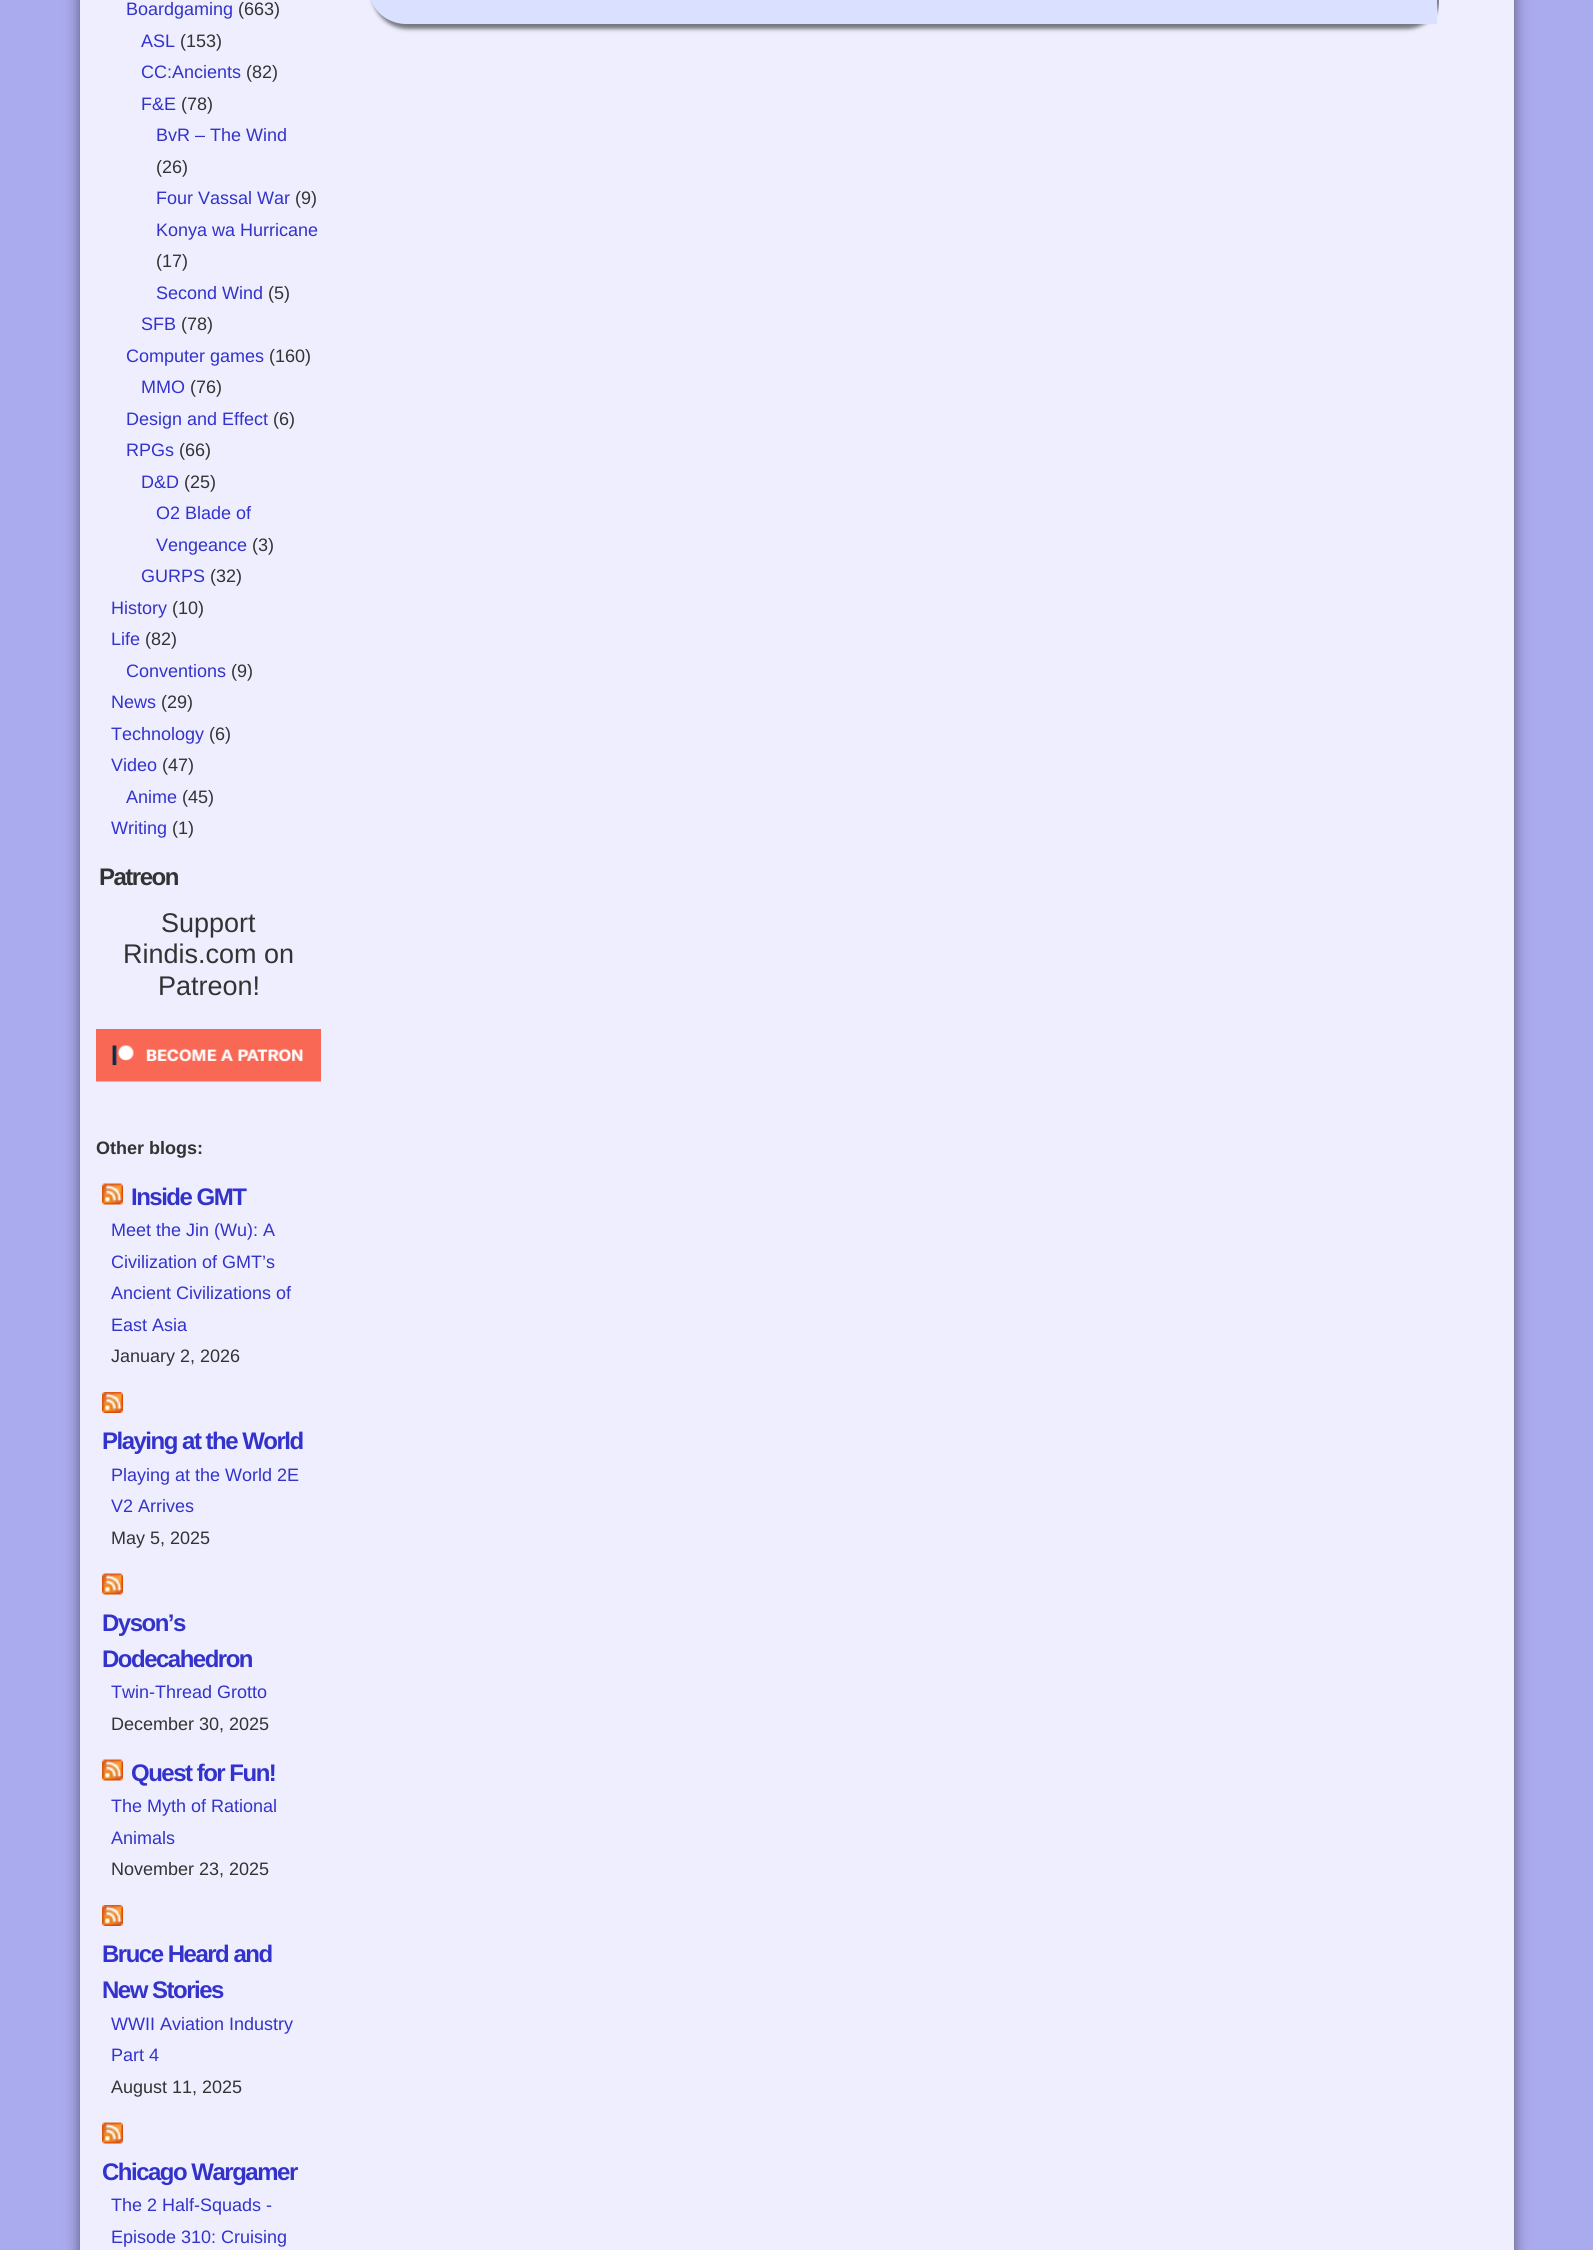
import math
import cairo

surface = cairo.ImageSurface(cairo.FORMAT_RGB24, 1593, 2250)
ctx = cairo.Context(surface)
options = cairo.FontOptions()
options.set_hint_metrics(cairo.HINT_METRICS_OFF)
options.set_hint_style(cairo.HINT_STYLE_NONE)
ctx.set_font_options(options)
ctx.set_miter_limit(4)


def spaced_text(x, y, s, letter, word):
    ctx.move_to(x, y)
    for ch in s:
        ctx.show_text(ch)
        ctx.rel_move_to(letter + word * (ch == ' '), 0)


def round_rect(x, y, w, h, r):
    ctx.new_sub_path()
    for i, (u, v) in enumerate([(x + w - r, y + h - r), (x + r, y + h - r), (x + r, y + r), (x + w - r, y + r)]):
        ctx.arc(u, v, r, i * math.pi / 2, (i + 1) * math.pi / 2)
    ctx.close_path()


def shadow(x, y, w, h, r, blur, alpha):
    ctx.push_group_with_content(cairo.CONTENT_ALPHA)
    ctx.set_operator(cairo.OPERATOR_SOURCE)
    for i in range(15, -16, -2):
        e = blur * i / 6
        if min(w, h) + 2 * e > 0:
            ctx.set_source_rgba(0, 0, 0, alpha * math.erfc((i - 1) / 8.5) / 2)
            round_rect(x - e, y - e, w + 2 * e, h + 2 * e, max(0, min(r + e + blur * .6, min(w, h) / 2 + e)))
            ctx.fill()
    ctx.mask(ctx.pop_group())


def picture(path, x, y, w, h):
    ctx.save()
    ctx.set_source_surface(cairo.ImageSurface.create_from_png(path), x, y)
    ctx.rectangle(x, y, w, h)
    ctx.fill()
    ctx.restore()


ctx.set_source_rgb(0.667, 0.667, 0.933)
ctx.paint()
ctx.set_source_rgb(0, 0, 0)
shadow(80, -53, 1434, 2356, 30, 7.5, 0.5)
ctx.set_source_rgb(0.933, 0.933, 1)
ctx.rectangle(80, 0, 1434, 2250)
ctx.fill()
ctx.select_font_face("Liberation Sans")
ctx.set_font_size(18)
ctx.set_source_rgb(0.2, 0.2, 0.8)
ctx.move_to(126, 15)
ctx.show_text("Boardgaming")
ctx.set_source_rgb(0.2, 0.2, 0.2)
ctx.move_to(238, 15)
ctx.show_text("(663)")
ctx.set_source_rgb(0.2, 0.2, 0.8)
ctx.move_to(141, 47)
ctx.show_text("ASL")
ctx.set_source_rgb(0.2, 0.2, 0.2)
ctx.move_to(180, 47)
ctx.show_text("(153)")
ctx.set_source_rgb(0.2, 0.2, 0.8)
ctx.move_to(141, 78)
ctx.show_text("CC:Ancients")
ctx.set_source_rgb(0.2, 0.2, 0.2)
ctx.move_to(246, 78)
ctx.show_text("(82)")
ctx.set_source_rgb(0.2, 0.2, 0.8)
ctx.move_to(141, 110)
ctx.show_text("F&E")
ctx.set_source_rgb(0.2, 0.2, 0.2)
ctx.move_to(181, 110)
ctx.show_text("(78)")
ctx.set_source_rgb(0.2, 0.2, 0.8)
ctx.move_to(156, 141)
ctx.show_text("BvR – The Wind")
ctx.set_source_rgb(0.2, 0.2, 0.2)
ctx.move_to(156, 173)
ctx.show_text("(26)")
ctx.set_source_rgb(0.2, 0.2, 0.8)
ctx.move_to(156, 204)
ctx.show_text("Four Vassal War")
ctx.set_source_rgb(0.2, 0.2, 0.2)
ctx.move_to(295, 204)
ctx.show_text("(9)")
ctx.set_source_rgb(0.2, 0.2, 0.8)
ctx.move_to(156, 236)
ctx.show_text("Konya wa Hurricane")
ctx.set_source_rgb(0.2, 0.2, 0.2)
ctx.move_to(156, 267)
ctx.show_text("(17)")
ctx.set_source_rgb(0.2, 0.2, 0.8)
ctx.move_to(156, 299)
ctx.show_text("Second Wind")
ctx.set_source_rgb(0.2, 0.2, 0.2)
ctx.move_to(268, 299)
ctx.show_text("(5)")
ctx.set_source_rgb(0.2, 0.2, 0.8)
ctx.move_to(141, 330)
ctx.show_text("SFB")
ctx.set_source_rgb(0.2, 0.2, 0.2)
ctx.move_to(181, 330)
ctx.show_text("(78)")
ctx.set_source_rgb(0.2, 0.2, 0.8)
ctx.move_to(126, 362)
ctx.show_text("Computer games")
ctx.set_source_rgb(0.2, 0.2, 0.2)
ctx.move_to(269, 362)
ctx.show_text("(160)")
ctx.set_source_rgb(0.2, 0.2, 0.8)
ctx.move_to(141, 393)
ctx.show_text("MMO")
ctx.set_source_rgb(0.2, 0.2, 0.2)
ctx.move_to(190, 393)
ctx.show_text("(76)")
ctx.set_source_rgb(0.2, 0.2, 0.8)
ctx.move_to(126, 425)
ctx.show_text("Design and Effect")
ctx.set_source_rgb(0.2, 0.2, 0.2)
ctx.move_to(273, 425)
ctx.show_text("(6)")
ctx.set_source_rgb(0.2, 0.2, 0.8)
ctx.move_to(126, 456)
ctx.show_text("RPGs")
ctx.set_source_rgb(0.2, 0.2, 0.2)
ctx.move_to(179, 456)
ctx.show_text("(66)")
ctx.set_source_rgb(0.2, 0.2, 0.8)
ctx.move_to(141, 488)
ctx.show_text("D&D")
ctx.set_source_rgb(0.2, 0.2, 0.2)
ctx.move_to(184, 488)
ctx.show_text("(25)")
ctx.set_source_rgb(0.2, 0.2, 0.8)
ctx.move_to(156, 519)
ctx.show_text("O2 Blade of")
ctx.move_to(156, 551)
ctx.show_text("Vengeance")
ctx.set_source_rgb(0.2, 0.2, 0.2)
ctx.move_to(252, 551)
ctx.show_text("(3)")
ctx.set_source_rgb(0.2, 0.2, 0.8)
ctx.move_to(141, 582)
ctx.show_text("GURPS")
ctx.set_source_rgb(0.2, 0.2, 0.2)
ctx.move_to(210, 582)
ctx.show_text("(32)")
ctx.set_source_rgb(0.2, 0.2, 0.8)
ctx.move_to(111, 614)
ctx.show_text("History")
ctx.set_source_rgb(0.2, 0.2, 0.2)
ctx.move_to(172, 614)
ctx.show_text("(10)")
ctx.set_source_rgb(0.2, 0.2, 0.8)
ctx.move_to(111, 645)
ctx.show_text("Life")
ctx.set_source_rgb(0.2, 0.2, 0.2)
ctx.move_to(145, 645)
ctx.show_text("(82)")
ctx.set_source_rgb(0.2, 0.2, 0.8)
ctx.move_to(126, 677)
ctx.show_text("Conventions")
ctx.set_source_rgb(0.2, 0.2, 0.2)
ctx.move_to(231, 677)
ctx.show_text("(9)")
ctx.set_source_rgb(0.2, 0.2, 0.8)
ctx.move_to(111, 708)
ctx.show_text("News")
ctx.set_source_rgb(0.2, 0.2, 0.2)
ctx.move_to(161, 708)
ctx.show_text("(29)")
ctx.set_source_rgb(0.2, 0.2, 0.8)
ctx.move_to(111, 740)
ctx.show_text("Technology")
ctx.set_source_rgb(0.2, 0.2, 0.2)
ctx.move_to(209, 740)
ctx.show_text("(6)")
ctx.set_source_rgb(0.2, 0.2, 0.8)
ctx.move_to(111, 771)
ctx.show_text("Video")
ctx.set_source_rgb(0.2, 0.2, 0.2)
ctx.move_to(162, 771)
ctx.show_text("(47)")
ctx.set_source_rgb(0.2, 0.2, 0.8)
ctx.move_to(126, 803)
ctx.show_text("Anime")
ctx.set_source_rgb(0.2, 0.2, 0.2)
ctx.move_to(182, 803)
ctx.show_text("(45)")
ctx.set_source_rgb(0.2, 0.2, 0.8)
ctx.move_to(111, 834)
ctx.show_text("Writing")
ctx.set_source_rgb(0.2, 0.2, 0.2)
ctx.move_to(172, 834)
ctx.show_text("(1)")
ctx.select_font_face("Liberation Sans", cairo.FONT_SLANT_NORMAL, cairo.FONT_WEIGHT_BOLD)
ctx.set_font_size(24)
spaced_text(99, 885, "Patreon", -1.5, 0)
ctx.select_font_face("Liberation Sans")
ctx.set_font_size(27)
ctx.move_to(161, 932)
ctx.show_text("Support")
ctx.move_to(123, 963)
ctx.show_text("Rindis.com on")
ctx.move_to(158, 995)
ctx.show_text("Patreon!")
picture("img1.png", 96, 1029, 225, 53)
ctx.select_font_face("Liberation Sans", cairo.FONT_SLANT_NORMAL, cairo.FONT_WEIGHT_BOLD)
ctx.set_font_size(18)
ctx.move_to(96, 1154)
ctx.show_text("Other blogs:")
picture("img2.png", 102, 1183, 21, 22)
ctx.set_font_size(24)
ctx.set_source_rgb(0.2, 0.2, 0.8)
spaced_text(131, 1205, "Inside GMT", -1.5, 0)
ctx.select_font_face("Liberation Sans")
ctx.set_font_size(18)
ctx.move_to(111, 1236)
ctx.show_text("Meet the Jin (Wu): A")
ctx.move_to(111, 1268)
ctx.show_text("Civilization of GMT’s")
ctx.move_to(111, 1299)
ctx.show_text("Ancient Civilizations of")
ctx.move_to(111, 1331)
ctx.show_text("East Asia")
ctx.set_source_rgb(0.2, 0.2, 0.2)
ctx.move_to(111, 1362)
ctx.show_text("January 2, 2026")
picture("img3.png", 102, 1392, 21, 21)
ctx.select_font_face("Liberation Sans", cairo.FONT_SLANT_NORMAL, cairo.FONT_WEIGHT_BOLD)
ctx.set_font_size(24)
ctx.set_source_rgb(0.2, 0.2, 0.8)
spaced_text(102, 1449, "Playing at the World", -1.5, 0)
ctx.select_font_face("Liberation Sans")
ctx.set_font_size(18)
ctx.move_to(111, 1481)
ctx.show_text("Playing at the World 2E")
ctx.move_to(111, 1512)
ctx.show_text("V2 Arrives")
ctx.set_source_rgb(0.2, 0.2, 0.2)
ctx.move_to(111, 1544)
ctx.show_text("May 5, 2025")
picture("img2.png", 102, 1573, 21, 22)
ctx.select_font_face("Liberation Sans", cairo.FONT_SLANT_NORMAL, cairo.FONT_WEIGHT_BOLD)
ctx.set_font_size(24)
ctx.set_source_rgb(0.2, 0.2, 0.8)
spaced_text(102, 1631, "Dyson’s", -1.5, 0)
spaced_text(102, 1667, "Dodecahedron", -1.5, 0)
ctx.select_font_face("Liberation Sans")
ctx.set_font_size(18)
ctx.move_to(111, 1698)
ctx.show_text("Twin-Thread Grotto")
ctx.set_source_rgb(0.2, 0.2, 0.2)
ctx.move_to(111, 1730)
ctx.show_text("December 30, 2025")
picture("img2.png", 102, 1759, 21, 22)
ctx.select_font_face("Liberation Sans", cairo.FONT_SLANT_NORMAL, cairo.FONT_WEIGHT_BOLD)
ctx.set_font_size(24)
ctx.set_source_rgb(0.2, 0.2, 0.8)
spaced_text(131, 1781, "Quest for Fun!", -1.5, 0)
ctx.select_font_face("Liberation Sans")
ctx.set_font_size(18)
ctx.move_to(111, 1812)
ctx.show_text("The Myth of Rational")
ctx.move_to(111, 1844)
ctx.show_text("Animals")
ctx.set_source_rgb(0.2, 0.2, 0.2)
ctx.move_to(111, 1875)
ctx.show_text("November 23, 2025")
picture("img3.png", 102, 1905, 21, 21)
ctx.select_font_face("Liberation Sans", cairo.FONT_SLANT_NORMAL, cairo.FONT_WEIGHT_BOLD)
ctx.set_font_size(24)
ctx.set_source_rgb(0.2, 0.2, 0.8)
spaced_text(102, 1962, "Bruce Heard and", -1.5, 0)
spaced_text(102, 1998, "New Stories", -1.5, 0)
ctx.select_font_face("Liberation Sans")
ctx.set_font_size(18)
ctx.move_to(111, 2030)
ctx.show_text("WWII Aviation Industry")
ctx.move_to(111, 2061)
ctx.show_text("Part 4")
ctx.set_source_rgb(0.2, 0.2, 0.2)
ctx.move_to(111, 2093)
ctx.show_text("August 11, 2025")
picture("img2.png", 102, 2122, 21, 22)
ctx.select_font_face("Liberation Sans", cairo.FONT_SLANT_NORMAL, cairo.FONT_WEIGHT_BOLD)
ctx.set_font_size(24)
ctx.set_source_rgb(0.2, 0.2, 0.8)
spaced_text(102, 2180, "Chicago Wargamer", -1.5, 0)
ctx.select_font_face("Liberation Sans")
ctx.set_font_size(18)
ctx.move_to(111, 2211)
ctx.show_text("The 2 Half-Squads -")
ctx.move_to(111, 2243)
ctx.show_text("Episode 310: Cruising")
ctx.save()
ctx.rectangle(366, 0, 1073, 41)
ctx.clip()
ctx.set_source_rgb(0, 0, 0)
shadow(372, -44, 1070, 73, 38, 2, 0.5)
ctx.restore()
ctx.set_source_rgb(0.855, 0.878, 1)
ctx.new_path()
ctx.move_to(368, -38)
ctx.line_to(1437, -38)
ctx.line_to(1437, 24)
ctx.line_to(406, 24)
ctx.curve_to(385, 24, 368, 7, 368, -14)
ctx.close_path()
ctx.fill()
surface.write_to_png("page.png")
